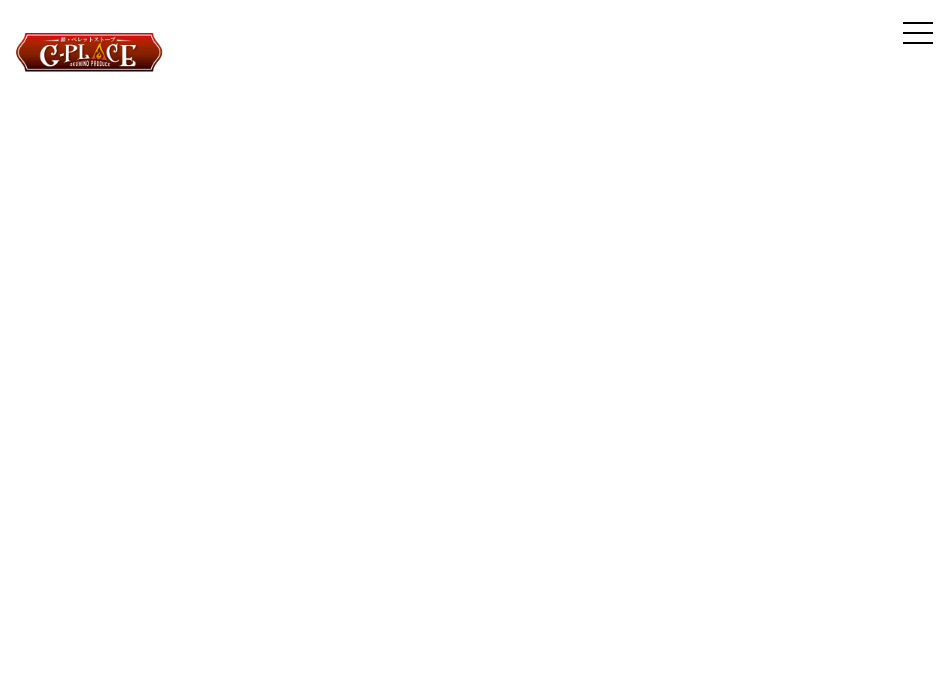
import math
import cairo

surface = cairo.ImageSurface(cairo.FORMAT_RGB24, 952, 688)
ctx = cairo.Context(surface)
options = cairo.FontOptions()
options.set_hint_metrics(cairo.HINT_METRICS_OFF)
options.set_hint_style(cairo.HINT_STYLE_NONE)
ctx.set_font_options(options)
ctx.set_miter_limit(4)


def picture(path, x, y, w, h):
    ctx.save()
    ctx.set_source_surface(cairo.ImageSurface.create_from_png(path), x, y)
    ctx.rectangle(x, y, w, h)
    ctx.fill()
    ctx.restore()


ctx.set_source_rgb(1, 1, 1)
ctx.paint()
picture("img1.png", 15, 32, 148, 40)
ctx.set_source_rgb(0, 0, 0)
ctx.rectangle(903, 22, 30, 2)
ctx.fill()
ctx.rectangle(903, 32, 30, 2)
ctx.fill()
ctx.rectangle(903, 42, 30, 2)
ctx.fill()
surface.write_to_png("page.png")
